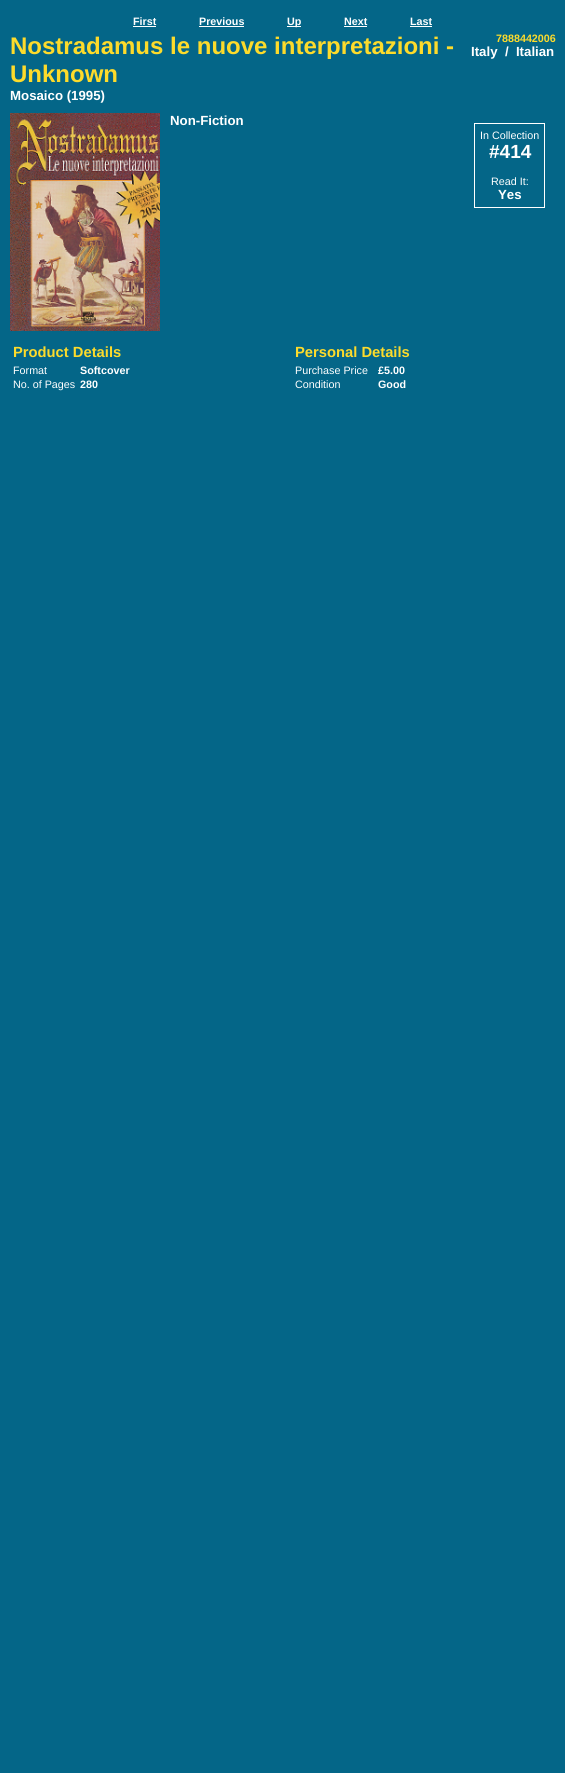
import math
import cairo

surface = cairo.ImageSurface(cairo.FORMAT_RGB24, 565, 1773)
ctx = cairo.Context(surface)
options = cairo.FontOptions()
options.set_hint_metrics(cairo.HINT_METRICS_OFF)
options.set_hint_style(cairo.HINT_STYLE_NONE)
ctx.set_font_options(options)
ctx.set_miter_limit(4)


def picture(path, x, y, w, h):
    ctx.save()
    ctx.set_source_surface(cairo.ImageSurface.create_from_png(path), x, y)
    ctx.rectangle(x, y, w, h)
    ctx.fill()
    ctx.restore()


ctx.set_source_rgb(0.016, 0.4, 0.533)
ctx.paint()
ctx.select_font_face("Liberation Sans", cairo.FONT_SLANT_NORMAL, cairo.FONT_WEIGHT_BOLD)
ctx.set_font_size(10.75)
ctx.set_source_rgb(1, 1, 1)
ctx.move_to(133, 25)
ctx.show_text("First")
ctx.rectangle(133, 26, 23, 1)
ctx.fill()
ctx.move_to(199, 25)
ctx.show_text("Previous")
ctx.rectangle(199, 26, 45, 1)
ctx.fill()
ctx.rectangle(287, 26, 14, 1)
ctx.fill()
ctx.move_to(287, 25)
ctx.show_text("Up")
ctx.move_to(344, 25)
ctx.show_text("Next")
ctx.rectangle(344, 26, 23, 1)
ctx.fill()
ctx.move_to(410, 25)
ctx.show_text("Last")
ctx.rectangle(410, 26, 22, 1)
ctx.fill()
ctx.set_font_size(24)
ctx.set_source_rgb(0.992, 0.859, 0.169)
ctx.move_to(10, 54)
ctx.show_text("Nostradamus le nuove interpretazioni -")
ctx.move_to(10, 82)
ctx.show_text("Unknown")
ctx.set_font_size(10.75)
ctx.move_to(496, 42)
ctx.show_text("7888442006")
ctx.set_font_size(13.25)
ctx.set_source_rgb(1, 1, 1)
ctx.move_to(471, 56)
ctx.show_text("Italy  /  Italian")
ctx.move_to(10, 100)
ctx.show_text("Mosaico (1995)")
picture("img1.png", 10, 113, 150, 218)
ctx.move_to(170, 125)
ctx.show_text("Non-Fiction")
ctx.rectangle(474.5, 123.5, 70, 84)
ctx.set_line_width(1)
ctx.stroke()
ctx.select_font_face("Liberation Sans")
ctx.set_font_size(10.75)
ctx.move_to(480, 139)
ctx.show_text("In Collection")
ctx.select_font_face("Liberation Sans", cairo.FONT_SLANT_NORMAL, cairo.FONT_WEIGHT_BOLD)
ctx.set_font_size(19)
ctx.move_to(489, 158)
ctx.show_text("#414")
ctx.select_font_face("Liberation Sans")
ctx.set_font_size(10.75)
ctx.move_to(491, 185)
ctx.show_text("Read It:")
ctx.select_font_face("Liberation Sans", cairo.FONT_SLANT_NORMAL, cairo.FONT_WEIGHT_BOLD)
ctx.set_font_size(13.25)
ctx.move_to(498, 199)
ctx.show_text("Yes")
ctx.set_font_size(14.75)
ctx.set_source_rgb(0.992, 0.859, 0.169)
ctx.move_to(13, 357)
ctx.show_text("Product Details")
ctx.select_font_face("Liberation Sans")
ctx.set_font_size(10.75)
ctx.set_source_rgb(1, 1, 1)
ctx.move_to(13, 374)
ctx.show_text("Format")
ctx.select_font_face("Liberation Sans", cairo.FONT_SLANT_NORMAL, cairo.FONT_WEIGHT_BOLD)
ctx.move_to(80, 374)
ctx.show_text("Softcover")
ctx.select_font_face("Liberation Sans")
ctx.move_to(13, 388)
ctx.show_text("No. of Pages")
ctx.select_font_face("Liberation Sans", cairo.FONT_SLANT_NORMAL, cairo.FONT_WEIGHT_BOLD)
ctx.move_to(80, 388)
ctx.show_text("280")
ctx.set_font_size(14.75)
ctx.set_source_rgb(0.992, 0.859, 0.169)
ctx.move_to(295, 357)
ctx.show_text("Personal Details")
ctx.select_font_face("Liberation Sans")
ctx.set_font_size(10.75)
ctx.set_source_rgb(1, 1, 1)
ctx.move_to(295, 374)
ctx.show_text("Purchase Price")
ctx.select_font_face("Liberation Sans", cairo.FONT_SLANT_NORMAL, cairo.FONT_WEIGHT_BOLD)
ctx.move_to(378, 374)
ctx.show_text("£5.00")
ctx.select_font_face("Liberation Sans")
ctx.move_to(295, 388)
ctx.show_text("Condition")
ctx.select_font_face("Liberation Sans", cairo.FONT_SLANT_NORMAL, cairo.FONT_WEIGHT_BOLD)
ctx.move_to(378, 388)
ctx.show_text("Good")
surface.write_to_png("page.png")
